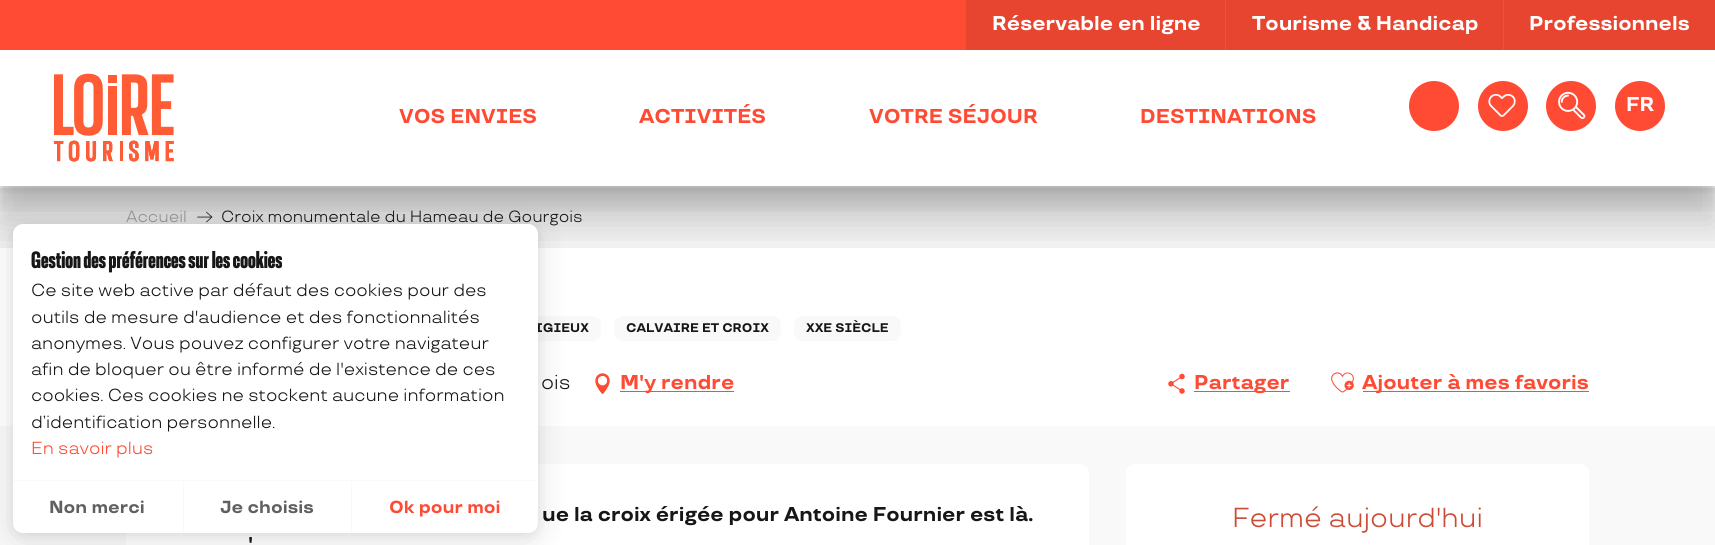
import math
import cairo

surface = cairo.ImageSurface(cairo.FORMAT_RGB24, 1715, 545)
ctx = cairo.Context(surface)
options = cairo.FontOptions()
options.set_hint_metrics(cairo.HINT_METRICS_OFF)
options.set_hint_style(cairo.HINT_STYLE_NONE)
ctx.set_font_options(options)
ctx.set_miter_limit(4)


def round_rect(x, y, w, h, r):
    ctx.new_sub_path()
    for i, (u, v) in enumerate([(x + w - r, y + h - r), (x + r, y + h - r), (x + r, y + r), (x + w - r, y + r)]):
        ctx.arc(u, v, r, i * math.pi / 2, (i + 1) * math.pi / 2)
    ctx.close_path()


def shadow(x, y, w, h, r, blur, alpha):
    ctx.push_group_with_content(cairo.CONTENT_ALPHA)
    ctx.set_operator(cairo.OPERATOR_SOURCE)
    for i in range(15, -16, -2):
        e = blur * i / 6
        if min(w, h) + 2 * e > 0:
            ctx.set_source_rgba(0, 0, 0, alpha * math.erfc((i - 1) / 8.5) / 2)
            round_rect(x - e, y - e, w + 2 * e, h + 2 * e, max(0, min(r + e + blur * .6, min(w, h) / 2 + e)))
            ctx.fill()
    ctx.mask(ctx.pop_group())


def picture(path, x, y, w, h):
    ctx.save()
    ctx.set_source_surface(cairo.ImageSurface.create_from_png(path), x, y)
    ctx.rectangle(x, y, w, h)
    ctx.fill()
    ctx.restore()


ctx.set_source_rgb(1, 1, 1)
ctx.paint()
ctx.set_source_rgb(1, 0.29, 0.204)
ctx.rectangle(0, 0, 1504, 50)
ctx.fill()
ctx.set_source_rgb(0.91, 0.271, 0.192)
ctx.rectangle(966, 0, 259, 50)
ctx.fill()
ctx.select_font_face("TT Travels", cairo.FONT_SLANT_NORMAL, cairo.FONT_WEIGHT_BOLD)
ctx.set_font_size(20)
ctx.set_source_rgb(1, 1, 1)
ctx.move_to(992, 30)
ctx.show_text("Réservable en ligne")
ctx.set_source_rgb(0.91, 0.271, 0.192)
ctx.rectangle(1226, 0, 277, 50)
ctx.fill()
ctx.set_source_rgb(1, 1, 1)
ctx.move_to(1252, 30)
ctx.show_text("Tourisme & Handicap")
ctx.set_source_rgb(0.91, 0.271, 0.192)
ctx.rectangle(1504, 0, 211, 50)
ctx.fill()
ctx.set_source_rgb(1, 1, 1)
ctx.move_to(1529, 30)
ctx.show_text("Professionnels")
ctx.set_source_rgb(0.945, 0.945, 0.945)
ctx.rectangle(0, 188, 1715, 60)
ctx.fill()
picture("img4.png", 197, 211, 16, 12)
ctx.save()
ctx.rectangle(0, 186, 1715, 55)
ctx.clip()
ctx.set_source_rgb(0, 0, 0)
shadow(0, 88, 1715, 136, 0, 15.5, 0.15)
ctx.restore()
ctx.save()
ctx.rectangle(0, 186, 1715, 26)
ctx.clip()
ctx.set_source_rgb(0, 0, 0)
shadow(0, 69, 1715, 136, 0, 8, 0.11)
ctx.restore()
ctx.save()
ctx.rectangle(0, 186, 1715, 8)
ctx.clip()
ctx.set_source_rgb(0, 0, 0)
shadow(0, 56, 1715, 137, 0, 2.5, 0.06)
ctx.restore()
picture("img1.png", 53, 73, 121, 89)
ctx.set_source_rgb(1, 0.29, 0.204)
ctx.move_to(399, 123)
ctx.show_text("VOS ENVIES")
ctx.move_to(639, 123)
ctx.show_text("ACTIVITÉS")
ctx.move_to(869, 123)
ctx.show_text("VOTRE SÉJOUR")
ctx.move_to(1140, 123)
ctx.show_text("DESTINATIONS")
ctx.new_path()
ctx.arc(1434, 106, 25, 0, 2 * math.pi)
ctx.fill()
ctx.arc(1503, 106, 25, 0, 2 * math.pi)
ctx.fill()
picture("img2.png", 1488, 93, 28, 24)
ctx.arc(1571, 106, 25, 0, 2 * math.pi)
ctx.fill()
picture("img3.png", 1558, 91, 28, 29)
ctx.arc(1640, 106, 25, 0, 2 * math.pi)
ctx.fill()
ctx.set_source_rgb(1, 1, 1)
ctx.move_to(1626, 111)
ctx.show_text("FR")
ctx.select_font_face("TT Travels")
ctx.set_font_size(16.25)
ctx.set_source_rgb(0.576, 0.576, 0.576)
ctx.move_to(126, 222)
ctx.show_text("Accueil")
ctx.set_source_rgb(0.09, 0.09, 0.09)
ctx.move_to(221, 222)
ctx.show_text("Croix monumentale du Hameau de Gourgois")
ctx.set_source_rgb(0.973, 0.973, 0.973)
round_rect(399, 316, 202, 25, 9)
ctx.fill()
ctx.select_font_face("TT Travels", cairo.FONT_SLANT_NORMAL, cairo.FONT_WEIGHT_BOLD)
ctx.set_font_size(12.5)
ctx.set_source_rgb(0.09, 0.09, 0.09)
ctx.move_to(535, 332)
ctx.show_text("IGIEUX")
ctx.set_source_rgb(0.973, 0.973, 0.973)
round_rect(614, 316, 167, 25, 9)
ctx.fill()
ctx.set_source_rgb(0.09, 0.09, 0.09)
ctx.move_to(626, 332)
ctx.show_text("CALVAIRE ET CROIX")
ctx.set_source_rgb(0.973, 0.973, 0.973)
round_rect(794, 316, 107, 25, 9)
ctx.fill()
ctx.set_source_rgb(0.09, 0.09, 0.09)
ctx.move_to(806, 332)
ctx.show_text("XXE SIÈCLE")
ctx.select_font_face("TT Travels")
ctx.set_font_size(20)
ctx.move_to(541, 389)
ctx.show_text("ois")
picture("img5.png", 595, 373, 15, 22)
ctx.set_source_rgb(1, 0.29, 0.204)
ctx.rectangle(620, 391, 114, 1)
ctx.fill()
ctx.select_font_face("TT Travels", cairo.FONT_SLANT_NORMAL, cairo.FONT_WEIGHT_BOLD)
ctx.move_to(620, 389)
ctx.show_text("M'y rendre")
picture("img6.png", 1168, 373, 17, 21)
ctx.rectangle(1194, 391, 96, 1)
ctx.fill()
ctx.move_to(1194, 389)
ctx.show_text("Partager")
picture("img7.png", 1331, 372, 23, 21)
ctx.rectangle(1363, 391, 226, 1)
ctx.fill()
ctx.move_to(1362, 389)
ctx.show_text("Ajouter à mes favoris")
ctx.set_source_rgb(0.973, 0.973, 0.973)
ctx.rectangle(0, 426, 1715, 119)
ctx.fill()
ctx.set_source_rgb(1, 1, 1)
round_rect(126, 464, 963, 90, 9)
ctx.fill()
ctx.set_source_rgb(0.09, 0.09, 0.09)
ctx.move_to(542, 521)
ctx.show_text("ue la croix érigée pour Antoine Fournier est là.")
ctx.move_to(248, 551)
ctx.show_text("'")
ctx.set_source_rgb(1, 1, 1)
round_rect(1126, 464, 463, 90, 9)
ctx.fill()
ctx.select_font_face("TT Travels")
ctx.set_font_size(27.5)
ctx.set_source_rgb(0.8, 0.294, 0.216)
ctx.move_to(1232, 527)
ctx.show_text("Fermé aujourd'hui")
ctx.set_source_rgb(0.09, 0.09, 0.09)
shadow(13, 226, 525, 309, 10, 4, 0.05)
shadow(13, 229, 525, 309, 10, 15, 0.15)
ctx.set_source_rgb(1, 1, 1)
round_rect(13, 224, 525, 309, 10)
ctx.fill()
ctx.select_font_face("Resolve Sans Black")
ctx.set_font_size(25)
ctx.set_source_rgb(0.09, 0.09, 0.09)
ctx.move_to(31, 268)
ctx.show_text("Gestion des préférences sur les cookies")
ctx.select_font_face("TT Travels")
ctx.set_font_size(17.5)
ctx.move_to(31, 296)
ctx.show_text("Ce site web active par défaut des cookies pour des")
ctx.move_to(31, 323)
ctx.show_text("outils de mesure d'audience et des fonctionnalités")
ctx.move_to(31, 349)
ctx.show_text("anonymes. Vous pouvez configurer votre navigateur")
ctx.move_to(31, 375)
ctx.show_text("afin de bloquer ou être informé de l'existence de ces")
ctx.move_to(31, 401)
ctx.show_text("cookies. Ces cookies ne stockent aucune information")
ctx.move_to(31, 428)
ctx.show_text("d’identification personnelle.")
ctx.set_source_rgb(1, 0.29, 0.204)
ctx.move_to(31, 454)
ctx.show_text("En savoir plus")
ctx.set_source_rgb(0.973, 0.973, 0.973)
ctx.rectangle(13, 480, 525, 1)
ctx.fill()
ctx.rectangle(183, 481, 1, 52)
ctx.fill()
ctx.select_font_face("TT Travels", cairo.FONT_SLANT_NORMAL, cairo.FONT_WEIGHT_BOLD)
ctx.set_source_rgb(0.376, 0.376, 0.376)
ctx.move_to(49, 513)
ctx.show_text("Non merci")
ctx.set_source_rgb(0.973, 0.973, 0.973)
ctx.rectangle(351, 481, 1, 52)
ctx.fill()
ctx.set_source_rgb(0.376, 0.376, 0.376)
ctx.move_to(220, 513)
ctx.show_text("Je choisis")
ctx.set_source_rgb(1, 0.29, 0.204)
ctx.move_to(389, 513)
ctx.show_text("Ok pour moi")
surface.write_to_png("page.png")
